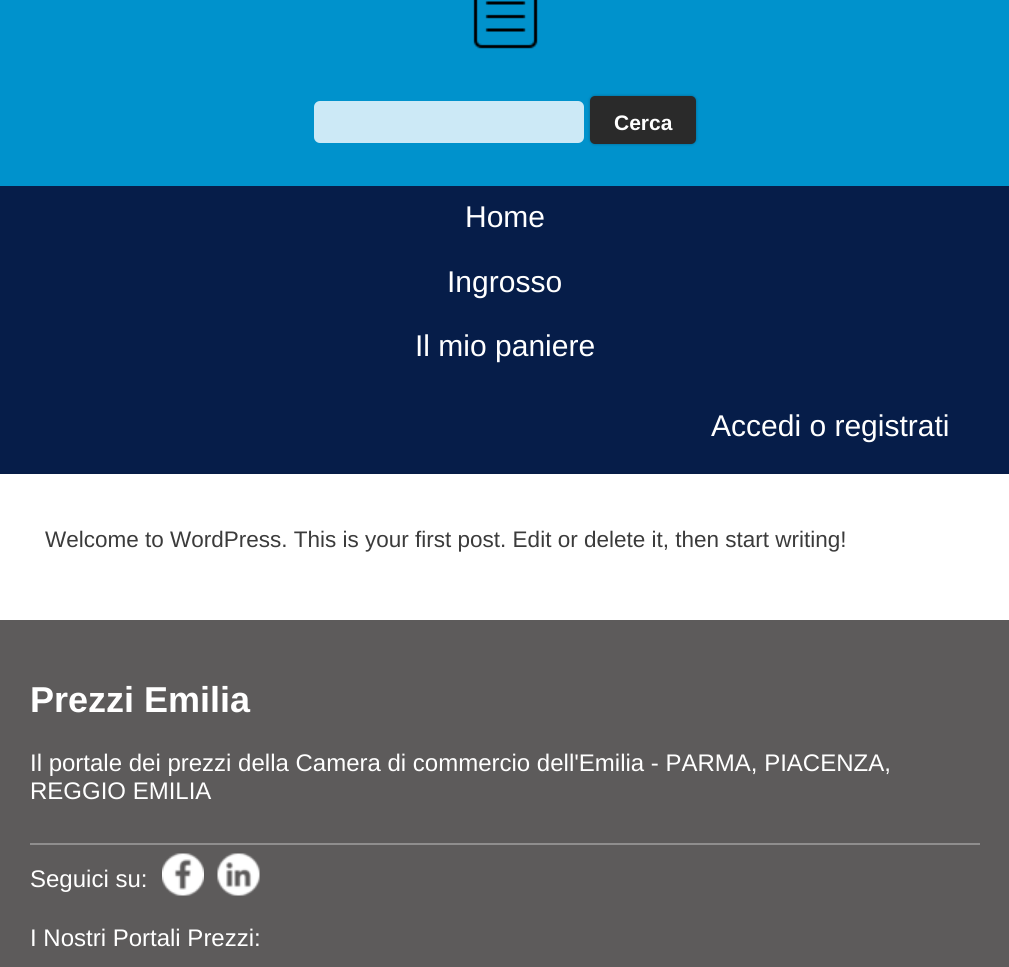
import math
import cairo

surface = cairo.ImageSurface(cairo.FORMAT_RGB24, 1009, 967)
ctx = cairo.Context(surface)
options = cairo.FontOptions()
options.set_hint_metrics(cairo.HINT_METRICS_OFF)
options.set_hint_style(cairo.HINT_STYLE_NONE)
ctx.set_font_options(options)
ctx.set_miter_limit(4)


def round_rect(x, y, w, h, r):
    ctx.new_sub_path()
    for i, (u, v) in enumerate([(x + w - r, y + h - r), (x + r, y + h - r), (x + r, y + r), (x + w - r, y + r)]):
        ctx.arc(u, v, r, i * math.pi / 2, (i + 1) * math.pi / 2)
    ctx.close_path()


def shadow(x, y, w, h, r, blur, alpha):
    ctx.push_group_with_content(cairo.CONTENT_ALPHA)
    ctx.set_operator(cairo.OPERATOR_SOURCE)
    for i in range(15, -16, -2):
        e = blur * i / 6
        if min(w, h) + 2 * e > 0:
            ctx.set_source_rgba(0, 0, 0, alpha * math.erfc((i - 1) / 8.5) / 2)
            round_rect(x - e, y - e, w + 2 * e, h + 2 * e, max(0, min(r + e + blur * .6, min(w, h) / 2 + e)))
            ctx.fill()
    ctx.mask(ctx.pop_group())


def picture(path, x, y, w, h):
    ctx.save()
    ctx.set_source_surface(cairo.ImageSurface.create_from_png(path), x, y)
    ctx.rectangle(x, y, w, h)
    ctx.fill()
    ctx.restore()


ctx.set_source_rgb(0, 0.573, 0.8)
ctx.paint()
picture("img1.png", 473, 0, 65, 49)
ctx.set_source_rgb(0.8, 0.914, 0.961)
round_rect(314, 101, 270, 42, 6)
ctx.fill()
ctx.set_source_rgb(0, 0, 0)
shadow(590, 96, 106, 48, 5, 1.5, 0.3)
ctx.set_source_rgb(0.165, 0.165, 0.165)
round_rect(590, 96, 106, 48, 5)
ctx.fill()
ctx.select_font_face("Liberation Sans", cairo.FONT_SLANT_NORMAL, cairo.FONT_WEIGHT_BOLD)
ctx.set_font_size(21)
ctx.set_source_rgb(1, 1, 1)
ctx.move_to(614, 130)
ctx.show_text("Cerca")
ctx.set_source_rgb(0.027, 0.114, 0.286)
ctx.rectangle(0, 186, 1009, 288)
ctx.fill()
ctx.select_font_face("Liberation Sans")
ctx.set_font_size(30)
ctx.set_source_rgb(1, 1, 1)
ctx.move_to(465, 227)
ctx.show_text("Home")
ctx.move_to(447, 292)
ctx.show_text("Ingrosso")
ctx.move_to(415, 356)
ctx.show_text("Il mio paniere")
ctx.move_to(711, 436)
ctx.show_text("Accedi o registrati")
ctx.set_source_rgb(0, 0, 0)
shadow(0, 474, 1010, 146, 0, 2, 0.1)
ctx.set_source_rgb(1, 1, 1)
ctx.rectangle(0, 474, 1009, 146)
ctx.fill()
ctx.set_font_size(22.5)
ctx.set_source_rgb(0.231, 0.231, 0.231)
ctx.move_to(45, 547)
ctx.show_text("Welcome to WordPress. This is your first post. Edit or delete it, then start writing!")
ctx.set_source_rgb(0.365, 0.357, 0.357)
ctx.rectangle(0, 620, 1009, 347)
ctx.fill()
ctx.set_source_rgb(0.561, 0.557, 0.557)
ctx.rectangle(30, 843, 950, 2)
ctx.fill()
ctx.select_font_face("Liberation Sans", cairo.FONT_SLANT_NORMAL, cairo.FONT_WEIGHT_BOLD)
ctx.set_font_size(36)
ctx.set_source_rgb(1, 1, 1)
ctx.move_to(30, 712)
ctx.show_text("Prezzi Emilia")
ctx.select_font_face("Liberation Sans")
ctx.set_font_size(24)
ctx.move_to(30, 771)
ctx.show_text("Il portale dei prezzi della Camera di commercio dell'Emilia - PARMA, PIACENZA,")
ctx.move_to(30, 799)
ctx.show_text("REGGIO EMILIA")
ctx.move_to(30, 887)
ctx.show_text("Seguici su:")
picture("img2.png", 162, 853, 42, 43)
picture("img3.png", 217, 853, 43, 43)
ctx.move_to(30, 946)
ctx.show_text("I Nostri Portali Prezzi:")
surface.write_to_png("page.png")
